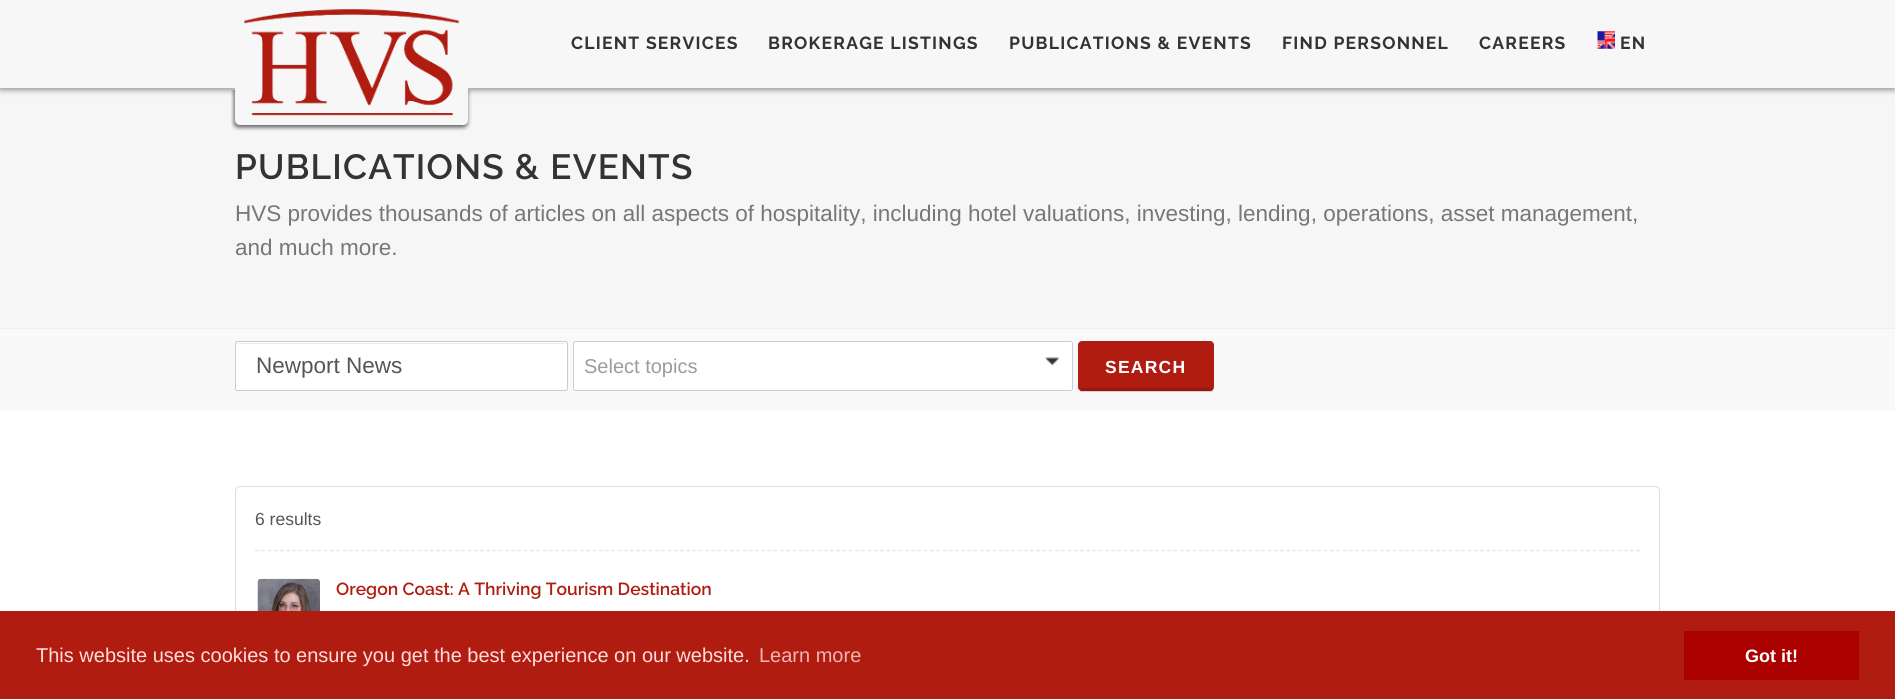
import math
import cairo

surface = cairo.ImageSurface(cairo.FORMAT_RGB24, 1895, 699)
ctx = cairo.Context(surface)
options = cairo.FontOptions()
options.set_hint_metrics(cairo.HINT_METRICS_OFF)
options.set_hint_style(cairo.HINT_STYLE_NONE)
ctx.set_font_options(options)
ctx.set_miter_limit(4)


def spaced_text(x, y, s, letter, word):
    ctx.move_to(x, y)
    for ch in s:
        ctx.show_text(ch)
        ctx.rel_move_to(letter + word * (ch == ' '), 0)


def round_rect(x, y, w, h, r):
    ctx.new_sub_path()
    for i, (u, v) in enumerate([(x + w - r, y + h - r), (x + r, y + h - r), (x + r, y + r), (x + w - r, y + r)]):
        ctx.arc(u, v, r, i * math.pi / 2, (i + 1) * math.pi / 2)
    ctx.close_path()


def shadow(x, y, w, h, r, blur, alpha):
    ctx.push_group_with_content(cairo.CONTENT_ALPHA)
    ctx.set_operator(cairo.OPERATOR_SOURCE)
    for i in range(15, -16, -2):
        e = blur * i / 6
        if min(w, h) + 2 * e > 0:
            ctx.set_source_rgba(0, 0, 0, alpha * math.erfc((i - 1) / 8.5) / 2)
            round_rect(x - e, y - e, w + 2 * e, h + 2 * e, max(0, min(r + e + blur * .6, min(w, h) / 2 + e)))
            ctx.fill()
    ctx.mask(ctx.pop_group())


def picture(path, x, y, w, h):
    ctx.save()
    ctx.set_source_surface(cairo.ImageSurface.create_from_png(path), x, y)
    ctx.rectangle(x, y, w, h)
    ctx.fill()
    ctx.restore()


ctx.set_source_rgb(1, 1, 1)
ctx.paint()
ctx.set_source_rgb(0.961, 0.961, 0.961)
ctx.rectangle(0, 88, 1895, 240)
ctx.fill()
ctx.set_source_rgb(0.196, 0.196, 0.196)
shadow(0, 3, 1895, 87, 0, 3, 0.5)
ctx.set_source_rgb(0.965, 0.965, 0.965)
ctx.rectangle(0, 0, 1895, 88)
ctx.fill()
picture("img2.png", 231, 90, 241, 41)
round_rect(235, 0, 233, 125, 5)
ctx.fill()
picture("img1.png", 244, 9, 216, 107)
ctx.select_font_face("Raleway", cairo.FONT_SLANT_NORMAL, cairo.FONT_WEIGHT_BOLD)
ctx.set_font_size(17.5)
ctx.set_source_rgb(0.2, 0.2, 0.2)
spaced_text(571, 49, "CLIENT SERVICES", 1.25, 0)
spaced_text(768, 49, "BROKERAGE LISTINGS", 1.25, 0)
spaced_text(1009, 49, "PUBLICATIONS & EVENTS", 1.25, 0)
spaced_text(1282, 49, "FIND PERSONNEL", 1.25, 0)
spaced_text(1479, 49, "CAREERS", 1.25, 0)
picture("img3.png", 1597, 31, 18, 18)
spaced_text(1620, 49, "EN", 1.25, 0)
ctx.set_source_rgb(0.933, 0.933, 0.933)
ctx.rectangle(0, 328, 1895, 1)
ctx.fill()
ctx.select_font_face("Raleway SemiBold")
ctx.set_font_size(35)
ctx.set_source_rgb(0.2, 0.2, 0.2)
spaced_text(235, 179, "PUBLICATIONS & EVENTS", 1.25, 0)
ctx.select_font_face("Liberation Sans")
ctx.set_font_size(22.5)
ctx.set_source_rgb(0.467, 0.467, 0.467)
ctx.move_to(235, 221)
ctx.show_text("HVS provides thousands of articles on all aspects of hospitality, including hotel valuations, investing, lending, operations, asset management,")
ctx.move_to(235, 255)
ctx.show_text("and much more.")
ctx.set_source_rgb(0.976, 0.976, 0.976)
ctx.rectangle(0, 329, 1895, 82)
ctx.fill()
ctx.set_source_rgb(1, 1, 1)
round_rect(235, 341, 333, 50, 2.5)
ctx.fill()
ctx.set_source_rgb(0.925, 0.925, 0.925)
ctx.new_path()
ctx.move_to(238, 344)
ctx.line_to(565, 344)
ctx.curve_to(566, 344, 566, 344, 566, 345)
ctx.curve_to(566, 344, 566, 343, 565, 343)
ctx.line_to(237, 343)
ctx.line_to(236, 344)
ctx.line_to(236, 345)
ctx.curve_to(236, 344, 237, 344, 238, 344)
ctx.close_path()
ctx.fill()
round_rect(235.5, 341.5, 332, 49, 2)
ctx.set_source_rgb(0.8, 0.8, 0.8)
ctx.set_line_width(1)
ctx.stroke()
ctx.set_source_rgb(0.333, 0.333, 0.333)
ctx.move_to(256, 373)
ctx.show_text("Newport News")
ctx.set_source_rgb(1, 1, 1)
round_rect(573.5, 341.5, 499, 49, 2)
ctx.fill_preserve()
ctx.set_source_rgb(0.8, 0.8, 0.8)
ctx.stroke()
ctx.set_font_size(20)
ctx.set_source_rgb(0.612, 0.612, 0.612)
ctx.move_to(584, 373)
ctx.show_text("Select topics")
picture("img4.png", 1045, 357, 14, 9)
ctx.set_source_rgb(0.694, 0.11, 0.067)
round_rect(1078, 341, 136, 50, 4)
ctx.fill()
ctx.set_source_rgba(0, 0, 0, 0.15)
ctx.rectangle(1080, 388, 133, 4)
ctx.fill()
ctx.select_font_face("Liberation Sans", cairo.FONT_SLANT_NORMAL, cairo.FONT_WEIGHT_BOLD)
ctx.set_font_size(17.5)
ctx.set_source_rgb(1, 1, 1)
spaced_text(1105, 373, "SEARCH", 1.25, 0)
round_rect(235.5, 486.5, 1424, 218, 4.5)
ctx.set_source_rgb(0.867, 0.867, 0.867)
ctx.stroke()
ctx.select_font_face("Liberation Sans")
ctx.set_source_rgb(0.333, 0.333, 0.333)
ctx.move_to(255, 525)
ctx.show_text("6 results")
ctx.new_path()
ctx.move_to(255, 550.5)
ctx.line_to(1640, 550.5)
ctx.set_source_rgb(0.898, 0.898, 0.898)
ctx.set_line_width(1.2)
ctx.set_dash([3.75, 2.5])
ctx.stroke()
picture("img5.png", 257, 578, 63, 33)
ctx.select_font_face("Raleway SemiBold")
ctx.set_source_rgb(0.694, 0.11, 0.067)
ctx.move_to(336, 595)
ctx.show_text("Oregon Coast: A Thriving Tourism Destination")
ctx.rectangle(0, 611, 1895, 88)
ctx.fill()
ctx.select_font_face("Liberation Sans")
ctx.set_font_size(20)
ctx.set_source_rgb(1, 0.867, 0.867)
ctx.move_to(36, 662)
ctx.show_text("This website uses cookies to ensure you get the best experience on our website.")
ctx.set_source_rgb(0.937, 0.714, 0.706)
ctx.move_to(759, 662)
ctx.show_text("Learn more")
ctx.set_source_rgb(0.667, 0, 0)
ctx.rectangle(1684, 631, 175, 49)
ctx.fill()
ctx.select_font_face("Liberation Sans", cairo.FONT_SLANT_NORMAL, cairo.FONT_WEIGHT_BOLD)
ctx.set_font_size(18)
ctx.set_source_rgb(1, 1, 1)
ctx.move_to(1745, 662)
ctx.show_text("Got it!")
surface.write_to_png("page.png")
